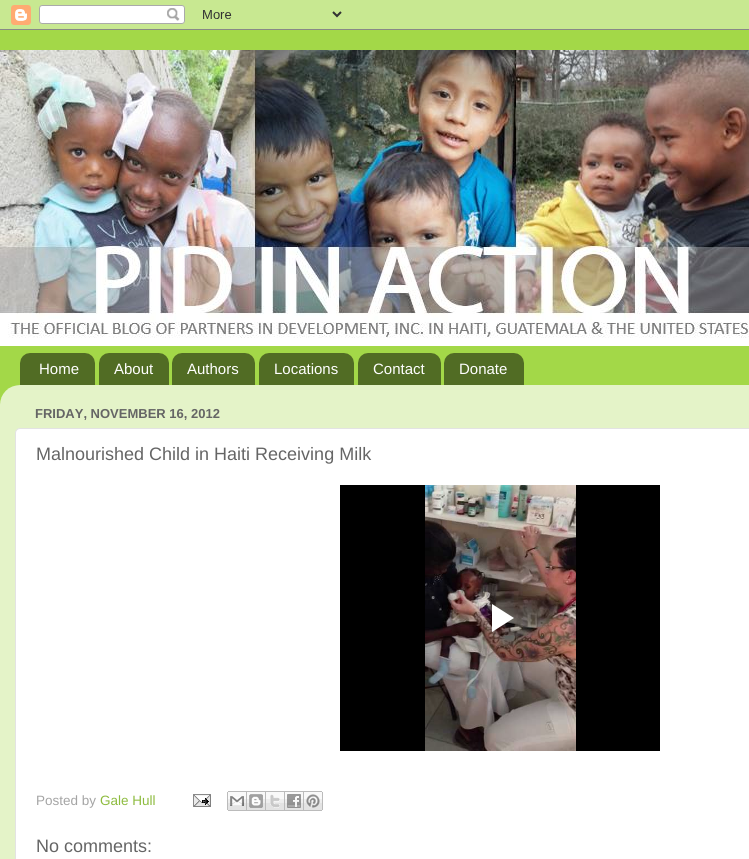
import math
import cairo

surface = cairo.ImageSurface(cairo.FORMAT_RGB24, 749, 859)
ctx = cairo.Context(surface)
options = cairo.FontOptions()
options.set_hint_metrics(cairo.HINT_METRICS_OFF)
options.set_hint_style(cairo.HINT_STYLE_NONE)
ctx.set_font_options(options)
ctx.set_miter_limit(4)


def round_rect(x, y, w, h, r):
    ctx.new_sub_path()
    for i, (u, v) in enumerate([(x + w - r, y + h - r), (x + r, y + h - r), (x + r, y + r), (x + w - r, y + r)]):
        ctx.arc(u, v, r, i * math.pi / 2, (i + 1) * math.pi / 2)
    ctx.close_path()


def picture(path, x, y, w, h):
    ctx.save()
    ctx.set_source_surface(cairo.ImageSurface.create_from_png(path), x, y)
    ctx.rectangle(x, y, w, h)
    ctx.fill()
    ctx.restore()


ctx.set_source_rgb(0.639, 0.847, 0.282)
ctx.paint()
picture("img1.png", 0, 0, 749, 30)
picture("img2.png", 0, 50, 749, 296)
picture("img3.png", 20, 353, 75, 32)
ctx.select_font_face("Liberation Sans")
ctx.set_font_size(15)
ctx.set_source_rgb(1, 1, 1)
ctx.move_to(39, 374)
ctx.show_text("Home")
picture("img4.png", 99, 353, 70, 32)
ctx.move_to(114, 374)
ctx.show_text("About")
picture("img5.png", 172, 353, 83, 32)
ctx.move_to(187, 374)
ctx.show_text("Authors")
picture("img6.png", 259, 353, 95, 32)
ctx.move_to(274, 374)
ctx.show_text("Locations")
picture("img7.png", 358, 353, 83, 32)
ctx.move_to(373, 374)
ctx.show_text("Contact")
picture("img8.png", 444, 353, 80, 32)
ctx.move_to(459, 374)
ctx.show_text("Donate")
picture("img9.png", 0, 385, 749, 474)
ctx.select_font_face("Liberation Sans", cairo.FONT_SLANT_NORMAL, cairo.FONT_WEIGHT_BOLD)
ctx.set_font_size(13)
ctx.set_source_rgb(0.396, 0.396, 0.396)
ctx.move_to(35, 418)
ctx.show_text("FRIDAY, NOVEMBER 16, 2012")
ctx.set_source_rgb(1, 1, 1)
round_rect(15.5, 428.5, 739, 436, 4.5)
ctx.fill_preserve()
ctx.set_source_rgb(0.89, 0.89, 0.89)
ctx.set_line_width(1)
ctx.stroke()
ctx.select_font_face("Liberation Sans")
ctx.set_font_size(18)
ctx.set_source_rgb(0.396, 0.396, 0.396)
ctx.move_to(36, 460)
ctx.show_text("Malnourished Child in Haiti Receiving Milk")
picture("img10.png", 340, 485, 320, 266)
ctx.set_font_size(13.5)
ctx.set_source_rgb(0.643, 0.643, 0.643)
ctx.move_to(36, 805)
ctx.show_text("Posted by")
ctx.set_source_rgb(0.553, 0.733, 0.243)
ctx.move_to(100, 805)
ctx.show_text("Gale Hull")
picture("img11.png", 193, 794, 18, 13)
picture("img12.png", 227, 791, 20, 20)
picture("img13.png", 247, 791, 19, 20)
picture("img14.png", 266, 791, 19, 20)
picture("img15.png", 285, 791, 19, 20)
picture("img16.png", 304, 791, 19, 20)
ctx.set_font_size(18)
ctx.set_source_rgb(0.396, 0.396, 0.396)
ctx.move_to(36, 852)
ctx.show_text("No comments:")
surface.write_to_png("page.png")
